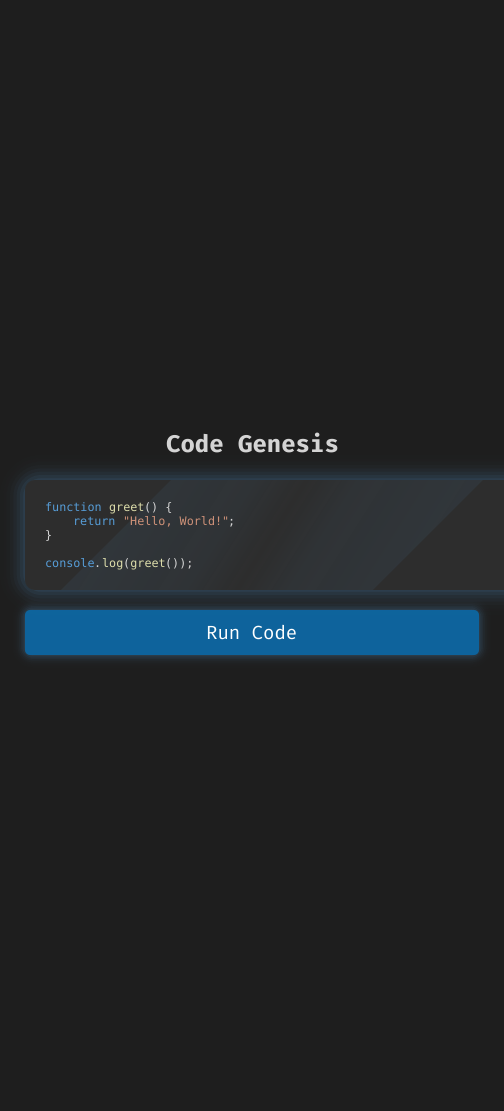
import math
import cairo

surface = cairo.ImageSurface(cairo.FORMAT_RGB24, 504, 1111)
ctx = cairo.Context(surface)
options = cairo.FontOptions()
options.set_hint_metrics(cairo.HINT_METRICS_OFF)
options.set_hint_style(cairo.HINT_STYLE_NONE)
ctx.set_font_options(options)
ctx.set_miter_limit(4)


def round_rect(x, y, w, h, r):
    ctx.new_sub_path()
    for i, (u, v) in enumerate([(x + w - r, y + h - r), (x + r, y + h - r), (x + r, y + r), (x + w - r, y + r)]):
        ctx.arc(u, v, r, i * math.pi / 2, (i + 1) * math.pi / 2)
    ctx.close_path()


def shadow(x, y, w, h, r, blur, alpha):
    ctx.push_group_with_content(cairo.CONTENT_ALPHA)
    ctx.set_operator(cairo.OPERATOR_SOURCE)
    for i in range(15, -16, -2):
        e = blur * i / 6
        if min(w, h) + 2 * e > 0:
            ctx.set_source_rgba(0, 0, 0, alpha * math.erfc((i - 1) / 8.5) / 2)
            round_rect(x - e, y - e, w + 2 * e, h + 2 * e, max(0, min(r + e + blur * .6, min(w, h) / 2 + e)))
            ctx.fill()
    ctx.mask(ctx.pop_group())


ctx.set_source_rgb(0.118, 0.118, 0.118)
ctx.paint()
ctx.select_font_face("Fira Code", cairo.FONT_SLANT_NORMAL, cairo.FONT_WEIGHT_BOLD)
ctx.set_font_size(24)
ctx.set_source_rgb(0.831, 0.831, 0.831)
ctx.move_to(166, 452)
ctx.show_text("Code Genesis")
ctx.set_source_rgb(0.337, 0.612, 0.839)
shadow(25, 610, 454, 45, 5, 5, 0.5)
ctx.set_source_rgb(0.055, 0.388, 0.612)
round_rect(25, 610, 454, 45, 5)
ctx.fill()
ctx.set_source_rgb(0.337, 0.612, 0.839)
shadow(25, 480, 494, 110, 10, 10, 0.5)
ctx.set_source_rgb(0.176, 0.176, 0.176)
round_rect(25, 480, 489, 110, 10)
ctx.fill()
gradient = cairo.LinearGradient(91, 420, 453, 650)
gradient.add_color_stop_rgba(0, 0.337, 0.612, 0.839, 0.1)
gradient.add_color_stop_rgba(0.4, 0.337, 0.612, 0.839, 0.05)
gradient.add_color_stop_rgba(0.5, 0.337, 0.612, 0.839, 0)
gradient.add_color_stop_rgba(0.6, 0.337, 0.612, 0.839, 0.05)
gradient.add_color_stop_rgba(1, 0.337, 0.612, 0.839, 0.1)
ctx.set_source(gradient)
ctx.new_path()
ctx.move_to(483, 480)
ctx.line_to(373, 590)
ctx.line_to(61, 590)
ctx.line_to(171, 480)
ctx.close_path()
ctx.fill()
ctx.select_font_face("DejaVu Sans Mono")
ctx.set_font_size(11.75)
ctx.set_source_rgb(0.337, 0.612, 0.839)
ctx.move_to(45, 511)
ctx.show_text("function")
ctx.set_source_rgb(0.863, 0.863, 0.667)
ctx.move_to(109, 511)
ctx.show_text("greet")
ctx.set_source_rgb(0.831, 0.831, 0.831)
ctx.move_to(144, 511)
ctx.show_text("() {")
ctx.set_source_rgb(0.337, 0.612, 0.839)
ctx.move_to(73, 525)
ctx.show_text("return")
ctx.set_source_rgb(0.808, 0.569, 0.471)
ctx.move_to(123, 525)
ctx.show_text("\"Hello, World!\"")
ctx.set_source_rgb(0.831, 0.831, 0.831)
ctx.move_to(228, 525)
ctx.show_text(";")
ctx.move_to(45, 539)
ctx.show_text("}")
ctx.set_source_rgb(0.337, 0.612, 0.839)
ctx.move_to(45, 567)
ctx.show_text("console")
ctx.set_source_rgb(0.863, 0.863, 0.667)
ctx.move_to(102, 567)
ctx.show_text("log greet")
ctx.set_source_rgb(0.831, 0.831, 0.831)
ctx.move_to(94, 567)
ctx.show_text(".")
ctx.move_to(123, 567)
ctx.show_text("(")
ctx.move_to(165, 567)
ctx.show_text("());")
ctx.select_font_face("Fira Code")
ctx.set_font_size(19)
ctx.set_source_rgb(1, 1, 1)
ctx.move_to(206, 639)
ctx.show_text("Run Code")
surface.write_to_png("page.png")
